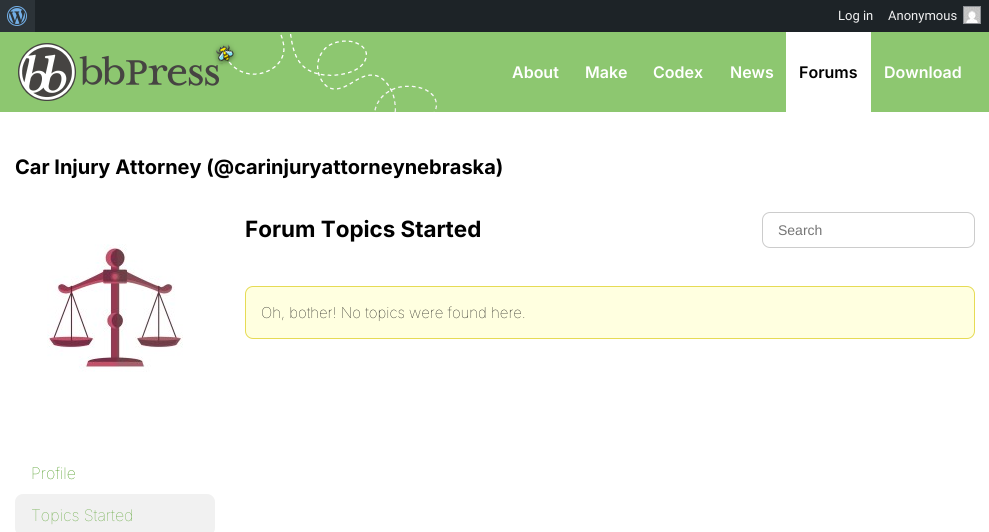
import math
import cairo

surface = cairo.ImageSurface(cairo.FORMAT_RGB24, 989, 532)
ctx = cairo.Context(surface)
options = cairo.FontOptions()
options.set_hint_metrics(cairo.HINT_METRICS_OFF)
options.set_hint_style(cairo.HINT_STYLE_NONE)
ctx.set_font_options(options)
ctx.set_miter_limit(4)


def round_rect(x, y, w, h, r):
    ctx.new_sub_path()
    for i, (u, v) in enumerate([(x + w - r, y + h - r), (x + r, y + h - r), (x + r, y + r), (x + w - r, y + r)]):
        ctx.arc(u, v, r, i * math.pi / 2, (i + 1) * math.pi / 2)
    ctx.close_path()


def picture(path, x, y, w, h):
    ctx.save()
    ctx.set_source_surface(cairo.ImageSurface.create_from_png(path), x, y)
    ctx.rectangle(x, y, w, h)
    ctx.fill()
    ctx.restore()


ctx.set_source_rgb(1, 1, 1)
ctx.paint()
ctx.set_source_rgb(0.114, 0.137, 0.153)
ctx.rectangle(35, 0, 954, 32)
ctx.fill()
ctx.set_source_rgb(0.173, 0.2, 0.22)
ctx.rectangle(0, 0, 35, 32)
ctx.fill()
picture("img1.png", 7, 6, 20, 20)
ctx.select_font_face("Roboto")
ctx.set_font_size(13)
ctx.set_source_rgb(0.941, 0.941, 0.945)
ctx.move_to(838, 20)
ctx.show_text("Log in")
ctx.rectangle(963.5, 6.5, 17, 17)
ctx.set_source_rgb(0.549, 0.561, 0.58)
ctx.set_line_width(1)
ctx.stroke()
ctx.set_source_rgb(0.941, 0.941, 0.945)
ctx.move_to(888, 20)
ctx.show_text("Anonymous")
picture("img2.png", 964, 7, 16, 16)
ctx.set_source_rgb(0.553, 0.78, 0.439)
ctx.rectangle(0, 32, 989, 80)
ctx.fill()
picture("img3.png", 213, 34, 224, 78)
picture("img4.png", 18, 43, 205, 58)
ctx.select_font_face("Inter SemiBold")
ctx.set_font_size(16)
ctx.set_source_rgb(1, 1, 1)
ctx.move_to(512, 78)
ctx.show_text("About")
ctx.move_to(585, 78)
ctx.show_text("Make")
ctx.move_to(653, 78)
ctx.show_text("Codex")
ctx.move_to(730, 78)
ctx.show_text("News")
ctx.rectangle(786, 32, 85, 80)
ctx.fill()
ctx.set_source_rgb(0, 0, 0)
ctx.move_to(799, 78)
ctx.show_text("Forums")
ctx.set_source_rgb(1, 1, 1)
ctx.move_to(884, 78)
ctx.show_text("Download")
ctx.select_font_face("Inter", cairo.FONT_SLANT_NORMAL, cairo.FONT_WEIGHT_BOLD)
ctx.set_font_size(20)
ctx.set_source_rgb(0, 0, 0)
ctx.move_to(15, 174)
ctx.show_text("Car Injury Attorney (@carinjuryattorneynebraska)")
ctx.set_font_size(22.4)
ctx.move_to(245, 237)
ctx.show_text("Forum Topics Started")
round_rect(762.5, 212.5, 212, 35, 7.5)
ctx.set_source_rgb(0.8, 0.8, 0.8)
ctx.stroke()
ctx.select_font_face("Liberation Sans")
ctx.set_font_size(14)
ctx.set_source_rgb(0.459, 0.459, 0.459)
ctx.move_to(778, 235)
ctx.show_text("Search")
ctx.set_source_rgb(1, 1, 0.878)
round_rect(245.5, 286.5, 729, 52, 7.5)
ctx.fill_preserve()
ctx.set_source_rgb(0.902, 0.859, 0.333)
ctx.stroke()
ctx.select_font_face("Inter Thin")
ctx.set_font_size(15)
ctx.set_source_rgb(0, 0, 0)
ctx.move_to(261, 318)
ctx.show_text("Oh, bother! No topics were found here.")
picture("img5.png", 47, 244, 136, 128)
ctx.set_font_size(16)
ctx.set_source_rgb(0.196, 0.549, 0)
ctx.move_to(31, 479)
ctx.show_text("Profile")
ctx.set_source_rgb(0.945, 0.945, 0.945)
round_rect(15, 494, 200, 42, 8)
ctx.fill()
ctx.set_source_rgb(0.357, 0.639, 0.2)
ctx.move_to(31, 521)
ctx.show_text("Topics Started")
surface.write_to_png("page.png")
